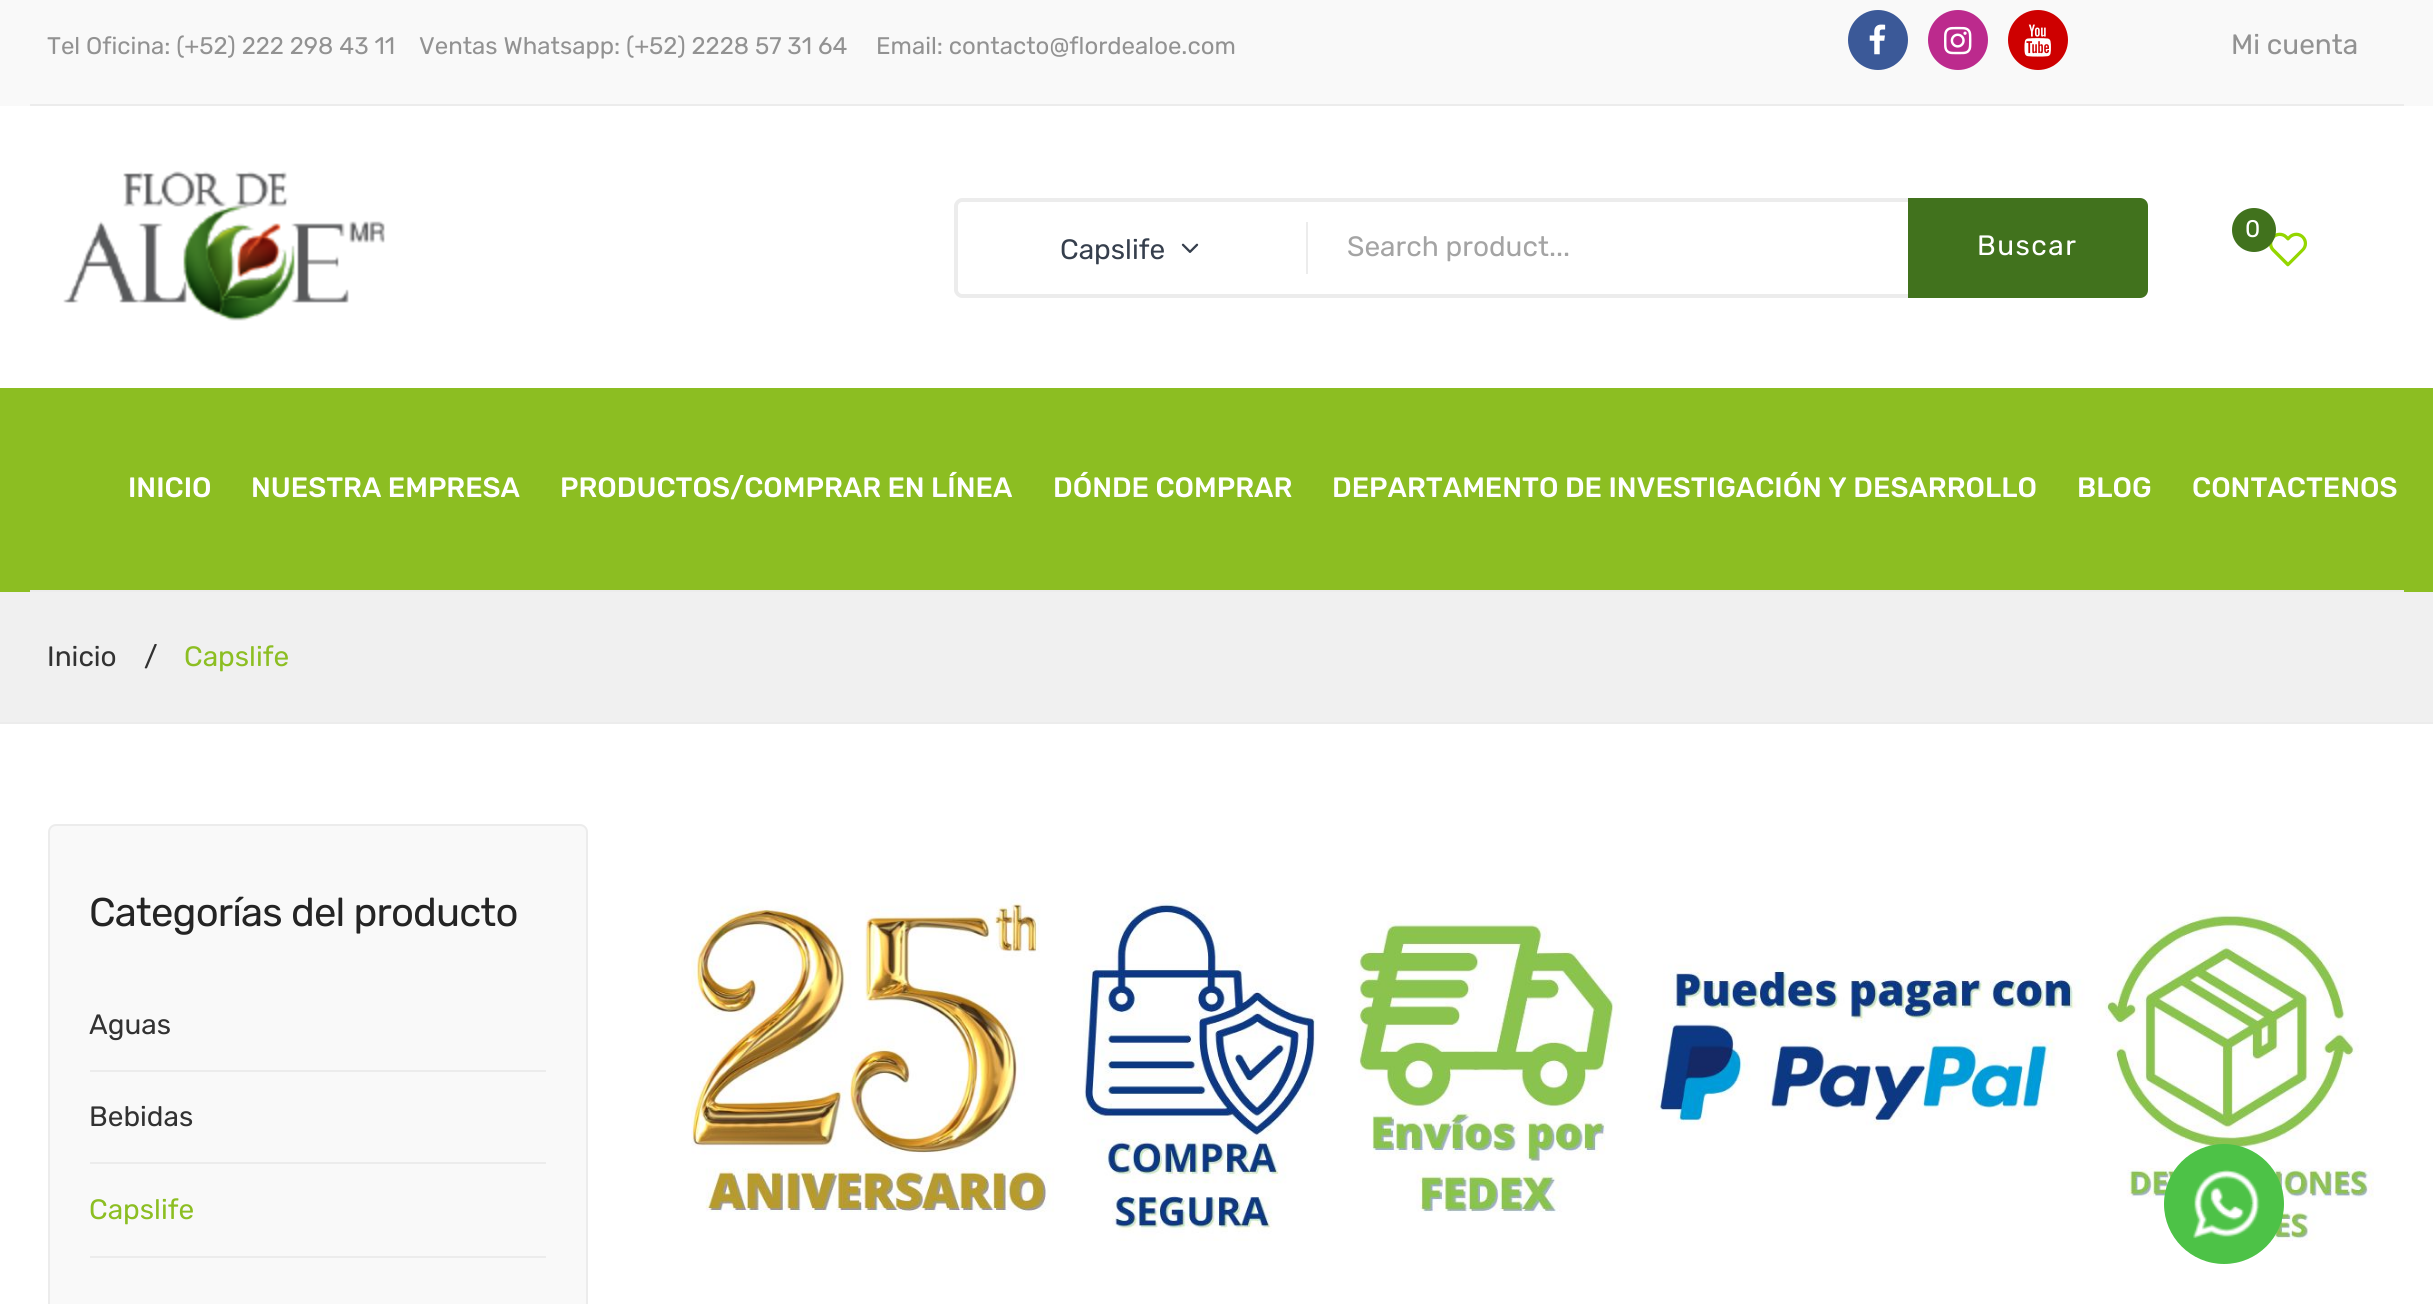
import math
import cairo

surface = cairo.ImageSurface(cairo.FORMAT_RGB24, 2433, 1304)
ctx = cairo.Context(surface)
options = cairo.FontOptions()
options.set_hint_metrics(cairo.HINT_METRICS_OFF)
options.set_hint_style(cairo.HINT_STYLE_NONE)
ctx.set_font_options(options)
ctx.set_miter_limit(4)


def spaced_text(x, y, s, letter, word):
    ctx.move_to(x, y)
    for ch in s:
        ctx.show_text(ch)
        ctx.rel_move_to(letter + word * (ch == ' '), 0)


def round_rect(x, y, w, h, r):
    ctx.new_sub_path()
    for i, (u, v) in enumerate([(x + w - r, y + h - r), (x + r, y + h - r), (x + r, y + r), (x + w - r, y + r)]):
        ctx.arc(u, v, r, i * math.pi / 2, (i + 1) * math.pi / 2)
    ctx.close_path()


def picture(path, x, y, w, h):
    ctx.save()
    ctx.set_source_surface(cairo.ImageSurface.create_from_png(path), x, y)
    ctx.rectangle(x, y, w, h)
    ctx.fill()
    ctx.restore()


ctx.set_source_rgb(1, 1, 1)
ctx.paint()
ctx.set_source_rgb(0.973, 0.976, 0.976)
ctx.rectangle(0, 0, 2433, 106)
ctx.fill()
ctx.select_font_face("Rubik")
ctx.set_font_size(24)
ctx.set_source_rgb(0.573, 0.573, 0.573)
ctx.move_to(47, 54)
ctx.show_text("Tel Oficina: (+52) 222 298 43 11")
ctx.move_to(419, 54)
ctx.show_text("Ventas Whatsapp: (+52) 2228 57 31 64")
ctx.move_to(876, 54)
ctx.show_text("Email: contacto@flordealoe.com")
ctx.set_source_rgb(0.231, 0.349, 0.596)
ctx.new_path()
ctx.arc(1878, 40, 30, 0, 2 * math.pi)
ctx.fill()
picture("img1.png", 1869, 24, 17, 31)
ctx.set_source_rgb(0.737, 0.165, 0.553)
ctx.arc(1958, 40, 30, 0, 2 * math.pi)
ctx.fill()
picture("img2.png", 1944, 26, 28, 29)
ctx.set_source_rgb(0.808, 0, 0)
ctx.arc(2038, 40, 30, 0, 2 * math.pi)
ctx.fill()
picture("img3.png", 2024, 24, 27, 33)
ctx.set_font_size(28)
ctx.set_source_rgb(0.573, 0.573, 0.573)
ctx.move_to(2231, 54)
ctx.show_text("Mi cuenta")
ctx.set_source_rgb(0.922, 0.922, 0.922)
ctx.rectangle(30, 104, 2374, 2)
ctx.fill()
picture("img4.png", 63, 171, 322, 150)
picture("img5.png", 2269, 232, 39, 35)
ctx.set_source_rgb(0.255, 0.447, 0.114)
ctx.arc(2254, 230, 22, 0, 2 * math.pi)
ctx.fill()
ctx.set_font_size(24)
ctx.set_source_rgb(1, 1, 1)
ctx.move_to(2245, 237)
ctx.show_text("0")
ctx.set_source_rgb(0.922, 0.922, 0.922)
ctx.set_fill_rule(cairo.FILL_RULE_EVEN_ODD)
ctx.new_path()
ctx.move_to(962, 198)
ctx.line_to(1308, 198)
ctx.line_to(1308, 298)
ctx.line_to(962, 298)
ctx.curve_to(958, 298, 954, 294, 954, 290)
ctx.line_to(954, 206)
ctx.curve_to(954, 202, 958, 198, 962, 198)
ctx.close_path()
ctx.move_to(962, 202)
ctx.line_to(1308, 202)
ctx.line_to(1308, 294)
ctx.line_to(962, 294)
ctx.curve_to(960, 294, 958, 292, 958, 290)
ctx.line_to(958, 206)
ctx.curve_to(958, 204, 960, 202, 962, 202)
ctx.close_path()
ctx.fill()
ctx.set_font_size(28)
ctx.set_source_rgb(0.212, 0.247, 0.302)
ctx.move_to(1060, 259)
ctx.show_text("Capslife")
picture("img6.png", 1181, 243, 18, 10)
ctx.set_source_rgb(0.922, 0.922, 0.922)
ctx.rectangle(1306, 222, 2, 52)
ctx.fill()
ctx.rectangle(1308, 198, 600, 4)
ctx.fill()
ctx.rectangle(1308, 294, 600, 4)
ctx.fill()
ctx.set_source_rgb(0.643, 0.643, 0.643)
ctx.move_to(1347, 256)
ctx.show_text("Search product...")
ctx.set_source_rgb(0.255, 0.447, 0.114)
ctx.new_path()
ctx.move_to(1908, 198)
ctx.line_to(2140, 198)
ctx.curve_to(2144.5, 198, 2148, 201.5, 2148, 206)
ctx.line_to(2148, 290)
ctx.curve_to(2148, 294.5, 2144.5, 298, 2140, 298)
ctx.line_to(1908, 298)
ctx.close_path()
ctx.fill()
ctx.set_source_rgb(1, 1, 1)
spaced_text(1977, 255, "Buscar", 1.5, 0)
ctx.set_source_rgb(0.549, 0.745, 0.133)
ctx.rectangle(0, 388, 2433, 204)
ctx.fill()
ctx.select_font_face("Rubik Medium")
ctx.set_source_rgb(1, 1, 1)
ctx.move_to(128, 497)
ctx.show_text("INICIO")
ctx.move_to(251, 497)
ctx.show_text("NUESTRA EMPRESA")
ctx.move_to(560, 497)
ctx.show_text("PRODUCTOS/COMPRAR EN LÍNEA")
ctx.move_to(1053, 497)
ctx.show_text("DÓNDE COMPRAR")
ctx.move_to(1332, 497)
ctx.show_text("DEPARTAMENTO DE INVESTIGACIÓN Y DESARROLLO")
ctx.move_to(2077, 497)
ctx.show_text("BLOG")
ctx.move_to(2192, 497)
ctx.show_text("CONTACTENOS")
ctx.set_source_rgb(0.922, 0.922, 0.922)
ctx.rectangle(30, 590, 2374, 2)
ctx.fill()
ctx.set_source_rgb(0.941, 0.941, 0.941)
ctx.rectangle(0, 592, 2433, 130)
ctx.fill()
ctx.set_source_rgb(0.922, 0.922, 0.922)
ctx.rectangle(0, 722, 2433, 2)
ctx.fill()
ctx.select_font_face("Rubik")
ctx.set_source_rgb(0.196, 0.196, 0.196)
ctx.move_to(47, 666)
ctx.show_text("Inicio")
ctx.move_to(144, 666)
ctx.show_text("/")
ctx.set_source_rgb(0.549, 0.745, 0.133)
ctx.move_to(184, 666)
ctx.show_text("Capslife")
ctx.set_source_rgb(0.973, 0.973, 0.973)
round_rect(49, 825, 538, 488, 7)
ctx.fill_preserve()
ctx.set_source_rgb(0.922, 0.922, 0.922)
ctx.stroke()
ctx.set_font_size(40)
ctx.set_source_rgb(0.141, 0.141, 0.141)
spaced_text(89, 926, "Categorías del producto", -0.8, 0)
ctx.set_source_rgb(0.922, 0.922, 0.922)
ctx.rectangle(90, 1070, 456, 2)
ctx.fill()
ctx.set_font_size(28)
ctx.set_source_rgb(0.196, 0.196, 0.196)
ctx.move_to(89, 1034)
ctx.show_text("Aguas")
ctx.set_source_rgb(0.922, 0.922, 0.922)
ctx.rectangle(90, 1162, 456, 2)
ctx.fill()
ctx.set_source_rgb(0.196, 0.196, 0.196)
ctx.move_to(89, 1126)
ctx.show_text("Bebidas")
ctx.set_source_rgb(0.922, 0.922, 0.922)
ctx.rectangle(90, 1256, 456, 2)
ctx.fill()
ctx.set_source_rgb(0.549, 0.745, 0.133)
ctx.move_to(89, 1219)
ctx.show_text("Capslife")
picture("img7.png", 691, 892, 1683, 349)
ctx.set_source_rgb(0.302, 0.761, 0.278)
ctx.arc(2224, 1204, 60, 0, 2 * math.pi)
ctx.fill()
picture("img8.png", 2193, 1169, 67, 70)
surface.write_to_png("page.png")
